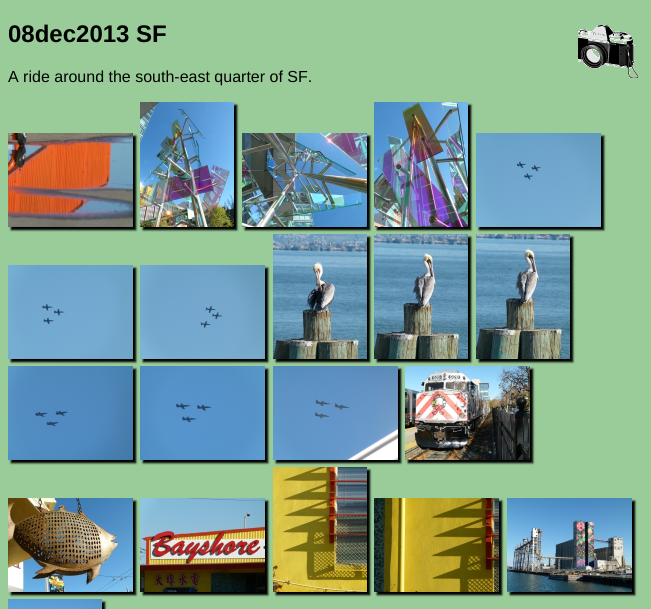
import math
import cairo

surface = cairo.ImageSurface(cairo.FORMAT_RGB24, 651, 609)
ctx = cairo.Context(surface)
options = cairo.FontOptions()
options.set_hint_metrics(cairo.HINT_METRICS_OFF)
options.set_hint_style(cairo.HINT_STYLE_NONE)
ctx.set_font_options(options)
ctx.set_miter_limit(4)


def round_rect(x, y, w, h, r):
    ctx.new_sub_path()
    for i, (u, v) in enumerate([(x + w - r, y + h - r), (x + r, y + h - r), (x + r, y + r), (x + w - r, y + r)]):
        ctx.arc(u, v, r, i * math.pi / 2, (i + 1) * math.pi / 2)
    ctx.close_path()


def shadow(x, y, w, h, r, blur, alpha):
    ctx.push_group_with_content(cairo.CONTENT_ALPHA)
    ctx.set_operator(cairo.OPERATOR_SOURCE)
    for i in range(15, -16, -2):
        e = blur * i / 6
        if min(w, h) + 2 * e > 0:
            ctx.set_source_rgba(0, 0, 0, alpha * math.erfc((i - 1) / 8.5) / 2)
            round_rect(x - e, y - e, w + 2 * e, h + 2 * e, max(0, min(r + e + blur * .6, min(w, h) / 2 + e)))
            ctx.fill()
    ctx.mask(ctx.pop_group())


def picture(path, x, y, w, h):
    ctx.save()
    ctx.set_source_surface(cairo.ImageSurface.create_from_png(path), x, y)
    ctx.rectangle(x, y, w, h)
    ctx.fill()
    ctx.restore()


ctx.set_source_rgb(0.6, 0.8, 0.6)
ctx.paint()
ctx.select_font_face("Liberation Sans", cairo.FONT_SLANT_NORMAL, cairo.FONT_WEIGHT_BOLD)
ctx.set_font_size(24)
ctx.set_source_rgb(0, 0, 0)
ctx.move_to(8, 42)
ctx.show_text("08dec2013 SF")
picture("img1.png", 578, 25, 60, 53)
ctx.select_font_face("Liberation Sans")
ctx.set_font_size(16)
ctx.move_to(8, 82)
ctx.show_text("A ride around the south-east quarter of SF.")
ctx.set_source_rgb(0, 0, 0)
shadow(143, 105, 94, 125, 0, 1, 1)
shadow(377, 105, 94, 125, 0, 1, 1)
shadow(11, 136, 125, 94, 0, 1, 1)
picture("img2.png", 140, 102, 94, 125)
shadow(245, 136, 125, 94, 0, 1, 1)
picture("img3.png", 374, 102, 94, 125)
shadow(479, 136, 125, 94, 0, 1, 1)
picture("img4.png", 8, 133, 125, 94)
picture("img5.png", 242, 133, 125, 94)
picture("img6.png", 476, 133, 125, 94)
shadow(276, 237, 94, 125, 0, 1, 1)
shadow(377, 237, 94, 125, 0, 1, 1)
shadow(479, 237, 94, 125, 0, 1, 1)
shadow(11, 268, 125, 94, 0, 1, 1)
shadow(143, 268, 125, 94, 0, 1, 1)
picture("img7.png", 273, 234, 94, 125)
picture("img8.png", 374, 234, 94, 125)
picture("img9.png", 476, 234, 94, 125)
picture("img10.png", 8, 265, 125, 94)
picture("img11.png", 140, 265, 125, 94)
shadow(11, 369, 125, 94, 0, 1, 1)
shadow(143, 369, 125, 94, 0, 1, 1)
shadow(276, 369, 125, 94, 0, 1, 1)
shadow(408, 369, 125, 94, 0, 1, 1)
picture("img12.png", 8, 366, 125, 94)
picture("img13.png", 140, 366, 125, 94)
picture("img14.png", 273, 366, 125, 94)
picture("img15.png", 405, 366, 125, 94)
shadow(276, 470, 94, 125, 0, 1, 1)
shadow(11, 501, 125, 94, 0, 1, 1)
shadow(143, 501, 125, 94, 0, 1, 1)
picture("img16.png", 273, 467, 94, 125)
shadow(377, 501, 125, 94, 0, 1, 1)
shadow(510, 501, 125, 94, 0, 1, 1)
picture("img17.png", 8, 498, 125, 94)
picture("img18.png", 140, 498, 125, 94)
picture("img19.png", 374, 498, 125, 94)
picture("img20.png", 507, 498, 125, 94)
shadow(11, 602, 94, 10, 0, 1, 1)
picture("img21.png", 8, 599, 94, 10)
surface.write_to_png("page.png")
